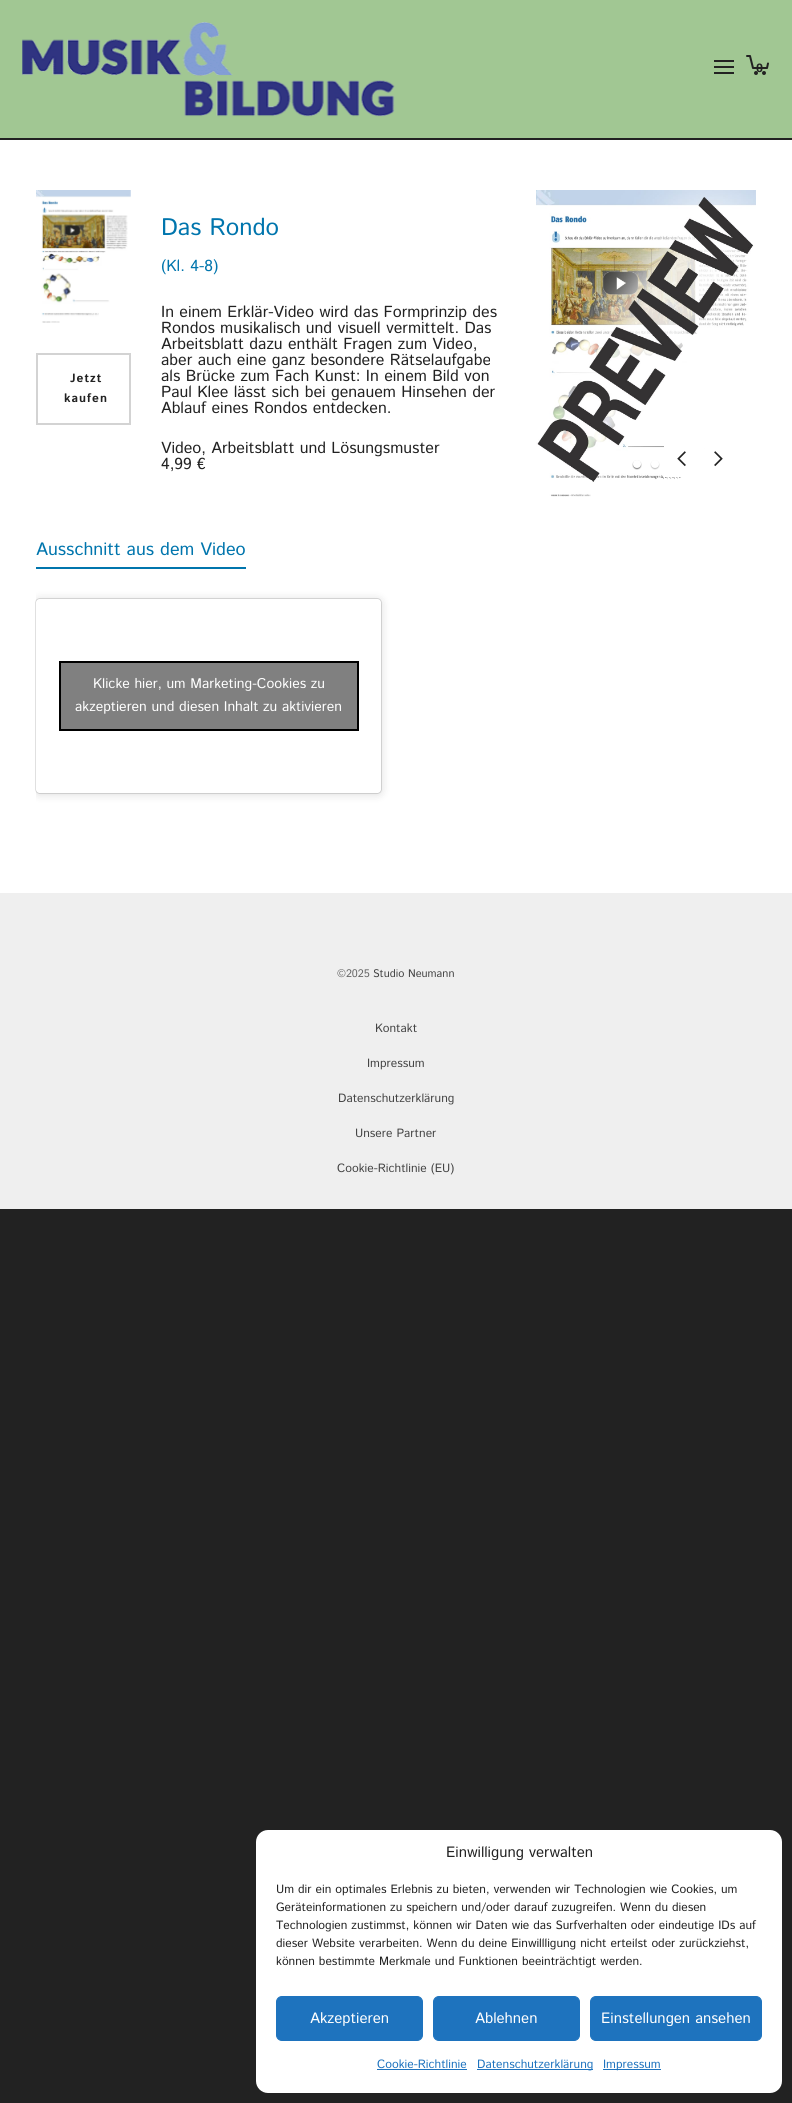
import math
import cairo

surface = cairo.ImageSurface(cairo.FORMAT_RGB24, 792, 2103)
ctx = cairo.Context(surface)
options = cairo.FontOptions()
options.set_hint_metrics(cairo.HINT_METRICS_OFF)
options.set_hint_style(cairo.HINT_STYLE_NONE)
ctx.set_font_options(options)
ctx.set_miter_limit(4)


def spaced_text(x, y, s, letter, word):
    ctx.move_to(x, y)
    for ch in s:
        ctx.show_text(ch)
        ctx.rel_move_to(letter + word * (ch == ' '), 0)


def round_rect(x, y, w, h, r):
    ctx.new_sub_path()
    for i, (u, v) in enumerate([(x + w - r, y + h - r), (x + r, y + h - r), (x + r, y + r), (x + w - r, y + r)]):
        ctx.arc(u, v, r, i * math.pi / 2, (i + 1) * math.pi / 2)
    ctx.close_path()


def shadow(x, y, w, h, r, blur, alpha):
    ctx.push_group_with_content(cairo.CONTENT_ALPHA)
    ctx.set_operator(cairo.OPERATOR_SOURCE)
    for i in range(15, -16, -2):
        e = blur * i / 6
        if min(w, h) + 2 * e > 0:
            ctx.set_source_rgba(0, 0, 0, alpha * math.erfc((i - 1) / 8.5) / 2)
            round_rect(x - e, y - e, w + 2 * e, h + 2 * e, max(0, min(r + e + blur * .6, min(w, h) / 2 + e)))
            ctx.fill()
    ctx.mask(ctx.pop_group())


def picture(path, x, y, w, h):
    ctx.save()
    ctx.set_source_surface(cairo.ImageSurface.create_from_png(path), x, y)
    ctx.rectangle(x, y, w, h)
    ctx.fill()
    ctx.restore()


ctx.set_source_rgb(0.133, 0.133, 0.133)
ctx.paint()
ctx.set_source_rgb(0.631, 0.78, 0.576)
ctx.rectangle(0, 0, 792, 138)
ctx.fill()
picture("img1.png", 22, 22, 373, 95)
ctx.set_source_rgb(0.133, 0.133, 0.133)
ctx.rectangle(714, 66, 20, 2)
ctx.fill()
ctx.rectangle(714, 60, 20, 2)
ctx.fill()
ctx.rectangle(714, 72, 20, 2)
ctx.fill()
picture("img2.png", 746, 55, 23, 20)
ctx.select_font_face("Istok Web", cairo.FONT_SLANT_NORMAL, cairo.FONT_WEIGHT_BOLD)
ctx.set_font_size(12)
ctx.move_to(756, 72)
ctx.show_text("0")
ctx.set_source_rgb(1, 1, 1)
ctx.rectangle(0, 140, 792, 753)
ctx.fill()
picture("img3.png", 36, 190, 95, 133)
ctx.rectangle(37, 354, 93, 70)
ctx.set_source_rgb(0.827, 0.827, 0.827)
ctx.stroke()
ctx.set_source_rgb(0.133, 0.133, 0.133)
spaced_text(70, 382, "Jetzt", 1, 0)
spaced_text(64, 402, "kaufen", 1, 0)
ctx.select_font_face("Istok Web")
ctx.set_font_size(24)
ctx.set_source_rgb(0, 0.459, 0.678)
ctx.move_to(161, 235)
ctx.show_text("Das Rondo")
ctx.set_font_size(16)
ctx.move_to(161, 271)
ctx.show_text("(Kl. 4-8)")
ctx.set_source_rgb(0.133, 0.133, 0.133)
ctx.move_to(161, 317)
ctx.show_text("In einem Erklär-Video wird das Formprinzip des")
ctx.move_to(161, 333)
ctx.show_text("Rondos musikalisch und visuell vermittelt. Das")
ctx.move_to(161, 349)
ctx.show_text("Arbeitsblatt dazu enthält Fragen zum Video,")
ctx.move_to(161, 365)
ctx.show_text("aber auch eine ganz besondere Rätselaufgabe")
ctx.move_to(161, 381)
ctx.show_text("als Brücke zum Fach Kunst: In einem Bild von")
ctx.move_to(161, 397)
ctx.show_text("Paul Klee lässt sich bei genauem Hinsehen der")
ctx.move_to(161, 413)
ctx.show_text("Ablauf eines Rondos entdecken.")
ctx.move_to(161, 453)
ctx.show_text("Video, Arbeitsblatt und Lösungsmuster")
ctx.move_to(161, 469)
ctx.show_text("4,99 €")
picture("img4.png", 536, 190, 220, 307)
ctx.set_source_rgb(1, 1, 1)
ctx.rectangle(664, 446, 36, 31)
ctx.fill()
picture("img5.png", 677, 451, 9, 16)
ctx.rectangle(700, 446, 5, 2)
ctx.fill()
picture("img6.png", 714, 451, 9, 16)
ctx.set_source_rgb(0, 0, 0)
shadow(633, 461, 8, 8, 4, 0.5, 0.5)
ctx.set_source_rgb(1, 1, 1)
ctx.arc(637, 464, 4, 0, 2 * math.pi)
ctx.fill()
ctx.set_source_rgb(0.502, 0.502, 0.502)
shadow(651, 461, 8, 8, 4, 0.5, 0.5)
ctx.set_source_rgb(1, 1, 1)
ctx.arc(655, 464, 4, 0, 2 * math.pi)
ctx.fill()
ctx.set_source_rgb(0, 0.459, 0.678)
ctx.rectangle(36, 567, 210, 2)
ctx.fill()
ctx.set_font_size(18)
ctx.move_to(36, 555)
ctx.show_text("Ausschnitt aus dem Video")
ctx.save()
ctx.rectangle(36, 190, 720, 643)
ctx.clip()
ctx.set_source_rgb(0, 0, 0)
shadow(36, 600, 345, 194, 3, 5, 0.15)
ctx.restore()
ctx.set_source_rgb(0, 0, 0)
shadow(36, 599, 345, 194, 3, 0.5, 0.5)
ctx.set_source_rgb(1, 1, 1)
round_rect(36, 599, 345, 194, 3)
ctx.fill()
ctx.set_source_rgb(0.502, 0.502, 0.502)
ctx.rectangle(60, 662, 298, 68)
ctx.fill_preserve()
ctx.set_source_rgb(0, 0, 0)
ctx.stroke()
ctx.set_font_size(14)
ctx.set_source_rgb(1, 1, 1)
ctx.move_to(93, 688)
ctx.show_text("Klicke hier, um Marketing-Cookies zu")
ctx.move_to(75, 711)
ctx.show_text("akzeptieren und diesen Inhalt zu aktivieren")
ctx.set_source_rgb(0.937, 0.937, 0.937)
ctx.rectangle(0, 893, 792, 316)
ctx.fill()
ctx.set_font_size(11)
ctx.set_source_rgb(0.4, 0.4, 0.4)
ctx.move_to(337, 977)
ctx.show_text("©2025")
ctx.set_source_rgb(0.267, 0.267, 0.267)
ctx.move_to(373, 977)
ctx.show_text("Studio Neumann")
ctx.set_font_size(12)
ctx.move_to(375, 1032)
ctx.show_text("Kontakt")
ctx.move_to(367, 1067)
ctx.show_text("Impressum")
ctx.move_to(338, 1102)
ctx.show_text("Datenschutzerklärung")
ctx.move_to(355, 1137)
ctx.show_text("Unsere Partner")
ctx.move_to(337, 1172)
ctx.show_text("Cookie-Richtlinie (EU)")
ctx.set_source_rgb(1, 1, 1)
round_rect(256, 1830, 526, 263, 12)
ctx.fill()
ctx.set_font_size(15)
ctx.set_source_rgb(0.133, 0.133, 0.133)
ctx.move_to(446, 1857)
ctx.show_text("Einwilligung verwalten")
ctx.set_font_size(12)
ctx.move_to(276, 1893)
ctx.show_text("Um dir ein optimales Erlebnis zu bieten, verwenden wir Technologien wie Cookies, um")
ctx.move_to(276, 1911)
ctx.show_text("Geräteinformationen zu speichern und/oder darauf zuzugreifen. Wenn du diesen")
ctx.move_to(276, 1929)
ctx.show_text("Technologien zustimmst, können wir Daten wie das Surfverhalten oder eindeutige IDs auf")
ctx.move_to(276, 1947)
ctx.show_text("dieser Website verarbeiten. Wenn du deine Einwillligung nicht erteilst oder zurückziehst,")
ctx.move_to(276, 1965)
ctx.show_text("können bestimmte Merkmale und Funktionen beeinträchtigt werden.")
ctx.set_source_rgb(0.118, 0.451, 0.745)
round_rect(276.5, 1996.5, 146, 44, 5.5)
ctx.fill_preserve()
ctx.set_line_width(1)
ctx.stroke()
ctx.set_font_size(15)
ctx.set_source_rgb(1, 1, 1)
ctx.move_to(310, 2023)
ctx.show_text("Akzeptieren")
ctx.set_source_rgb(0.118, 0.451, 0.745)
round_rect(433.5, 1996.5, 146, 44, 5.5)
ctx.fill_preserve()
ctx.stroke()
ctx.set_source_rgb(1, 1, 1)
ctx.move_to(475, 2023)
ctx.show_text("Ablehnen")
ctx.set_source_rgb(0.118, 0.451, 0.745)
round_rect(590.5, 1996.5, 171, 44, 5.5)
ctx.fill_preserve()
ctx.stroke()
ctx.set_source_rgb(1, 1, 1)
ctx.move_to(601, 2023)
ctx.show_text("Einstellungen ansehen")
ctx.set_font_size(12)
ctx.set_source_rgb(0.118, 0.451, 0.745)
ctx.move_to(377, 2068)
ctx.show_text("Cookie-Richtlinie")
ctx.rectangle(377, 2069, 90, 1)
ctx.fill()
ctx.rectangle(477, 2069, 116, 1)
ctx.fill()
ctx.move_to(477, 2068)
ctx.show_text("Datenschutzerklärung")
ctx.rectangle(603, 2069, 58, 1)
ctx.fill()
ctx.move_to(603, 2068)
ctx.show_text("Impressum")
surface.write_to_png("page.png")
